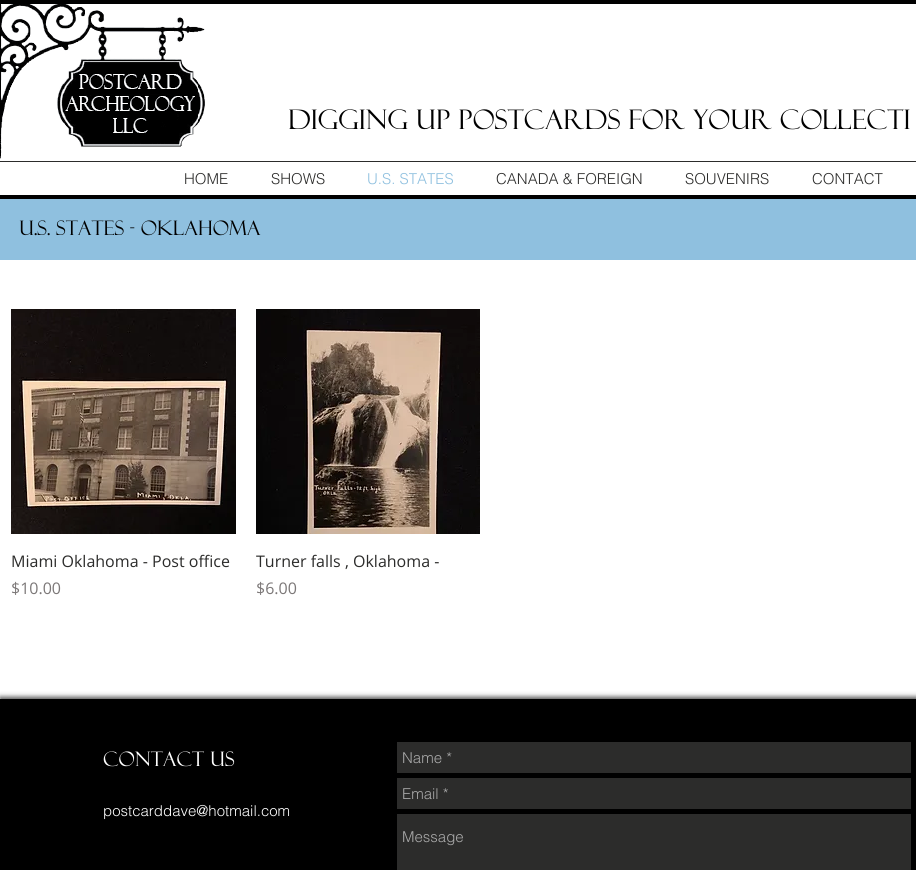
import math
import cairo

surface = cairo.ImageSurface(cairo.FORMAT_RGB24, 916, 870)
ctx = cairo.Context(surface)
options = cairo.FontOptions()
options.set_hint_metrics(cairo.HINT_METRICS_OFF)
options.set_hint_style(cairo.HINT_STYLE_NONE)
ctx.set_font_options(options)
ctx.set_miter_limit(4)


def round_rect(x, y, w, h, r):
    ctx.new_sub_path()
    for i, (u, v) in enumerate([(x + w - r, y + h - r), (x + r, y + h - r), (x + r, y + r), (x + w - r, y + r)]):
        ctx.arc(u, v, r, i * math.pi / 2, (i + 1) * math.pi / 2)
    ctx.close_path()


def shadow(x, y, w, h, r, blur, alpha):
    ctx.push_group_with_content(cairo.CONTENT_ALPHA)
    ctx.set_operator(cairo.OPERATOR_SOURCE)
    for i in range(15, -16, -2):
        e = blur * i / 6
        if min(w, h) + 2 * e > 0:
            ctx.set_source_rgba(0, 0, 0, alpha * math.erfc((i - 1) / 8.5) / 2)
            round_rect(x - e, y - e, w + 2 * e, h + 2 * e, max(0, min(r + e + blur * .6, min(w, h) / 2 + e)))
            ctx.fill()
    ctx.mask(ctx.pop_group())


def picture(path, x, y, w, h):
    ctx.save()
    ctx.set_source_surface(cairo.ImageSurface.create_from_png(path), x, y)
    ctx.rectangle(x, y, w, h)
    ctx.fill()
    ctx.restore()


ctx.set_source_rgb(1, 1, 1)
ctx.paint()
ctx.set_source_rgb(0, 0, 0)
ctx.rectangle(0, 0, 916, 4)
ctx.fill()
picture("img1.png", 0, 4, 205, 155)
ctx.select_font_face("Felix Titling")
ctx.set_font_size(27)
ctx.move_to(288, 129)
ctx.show_text("DIGGING UP POSTCARDS FOR YOUR COLLECTI")
ctx.set_source_rgb(0.173, 0.173, 0.169)
ctx.rectangle(0, 161, 916, 1)
ctx.fill()
ctx.select_font_face("helvetica Light")
ctx.set_font_size(15)
ctx.move_to(184, 184)
ctx.show_text("HOME")
ctx.move_to(271, 184)
ctx.show_text("SHOWS")
ctx.set_source_rgb(0.561, 0.753, 0.875)
ctx.move_to(367, 184)
ctx.show_text("U.S. STATES")
ctx.set_source_rgb(0.173, 0.173, 0.169)
ctx.move_to(496, 184)
ctx.show_text("CANADA & FOREIGN")
ctx.move_to(685, 184)
ctx.show_text("SOUVENIRS")
ctx.move_to(812, 184)
ctx.show_text("CONTACT")
ctx.set_source_rgb(0, 0, 0)
ctx.rectangle(0, 195, 916, 4)
ctx.fill()
ctx.set_source_rgb(0.561, 0.753, 0.875)
ctx.rectangle(0, 199, 916, 61)
ctx.fill()
ctx.select_font_face("Felix Titling")
ctx.set_font_size(20)
ctx.set_source_rgb(0, 0, 0)
ctx.move_to(19, 235)
ctx.show_text("U.S. States - OKLAHOMA")
picture("img2.png", 11, 309, 225, 225)
ctx.select_font_face("Open Sans")
ctx.set_font_size(16)
ctx.set_source_rgb(0.173, 0.173, 0.169)
ctx.move_to(11, 567)
ctx.show_text("Miami Oklahoma - Post office")
ctx.set_source_rgb(0.486, 0.471, 0.471)
ctx.move_to(11, 594)
ctx.show_text("$10.00")
picture("img3.png", 256, 309, 224, 225)
ctx.set_source_rgb(0.173, 0.173, 0.169)
ctx.move_to(256, 567)
ctx.show_text("Turner falls , Oklahoma -")
ctx.set_source_rgb(0.486, 0.471, 0.471)
ctx.move_to(256, 594)
ctx.show_text("$6.00")
ctx.set_source_rgb(0, 0, 0)
shadow(0, 697, 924, 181, 0, 2.5, 0.7)
ctx.set_source_rgb(0, 0, 0)
ctx.rectangle(0, 699, 916, 171)
ctx.fill()
ctx.select_font_face("Felix Titling")
ctx.set_font_size(20)
ctx.set_source_rgb(1, 1, 1)
ctx.move_to(103, 766)
ctx.show_text("contact us")
ctx.select_font_face("helvetica Light")
ctx.set_font_size(15)
ctx.move_to(103, 816)
ctx.show_text("postcarddave@hotmail.com")
ctx.set_source_rgb(0.173, 0.173, 0.169)
ctx.rectangle(397, 742, 514, 31)
ctx.fill()
ctx.set_source_rgb(0.663, 0.663, 0.663)
ctx.move_to(402, 763)
ctx.show_text("Name *")
ctx.set_source_rgb(0.173, 0.173, 0.169)
ctx.rectangle(397, 778, 514, 31)
ctx.fill()
ctx.set_source_rgb(0.663, 0.663, 0.663)
ctx.move_to(402, 799)
ctx.show_text("Email *")
ctx.set_source_rgb(0.173, 0.173, 0.169)
ctx.rectangle(397, 814, 514, 56)
ctx.fill()
ctx.set_source_rgb(0.663, 0.663, 0.663)
ctx.move_to(402, 842)
ctx.show_text("Message")
surface.write_to_png("page.png")
